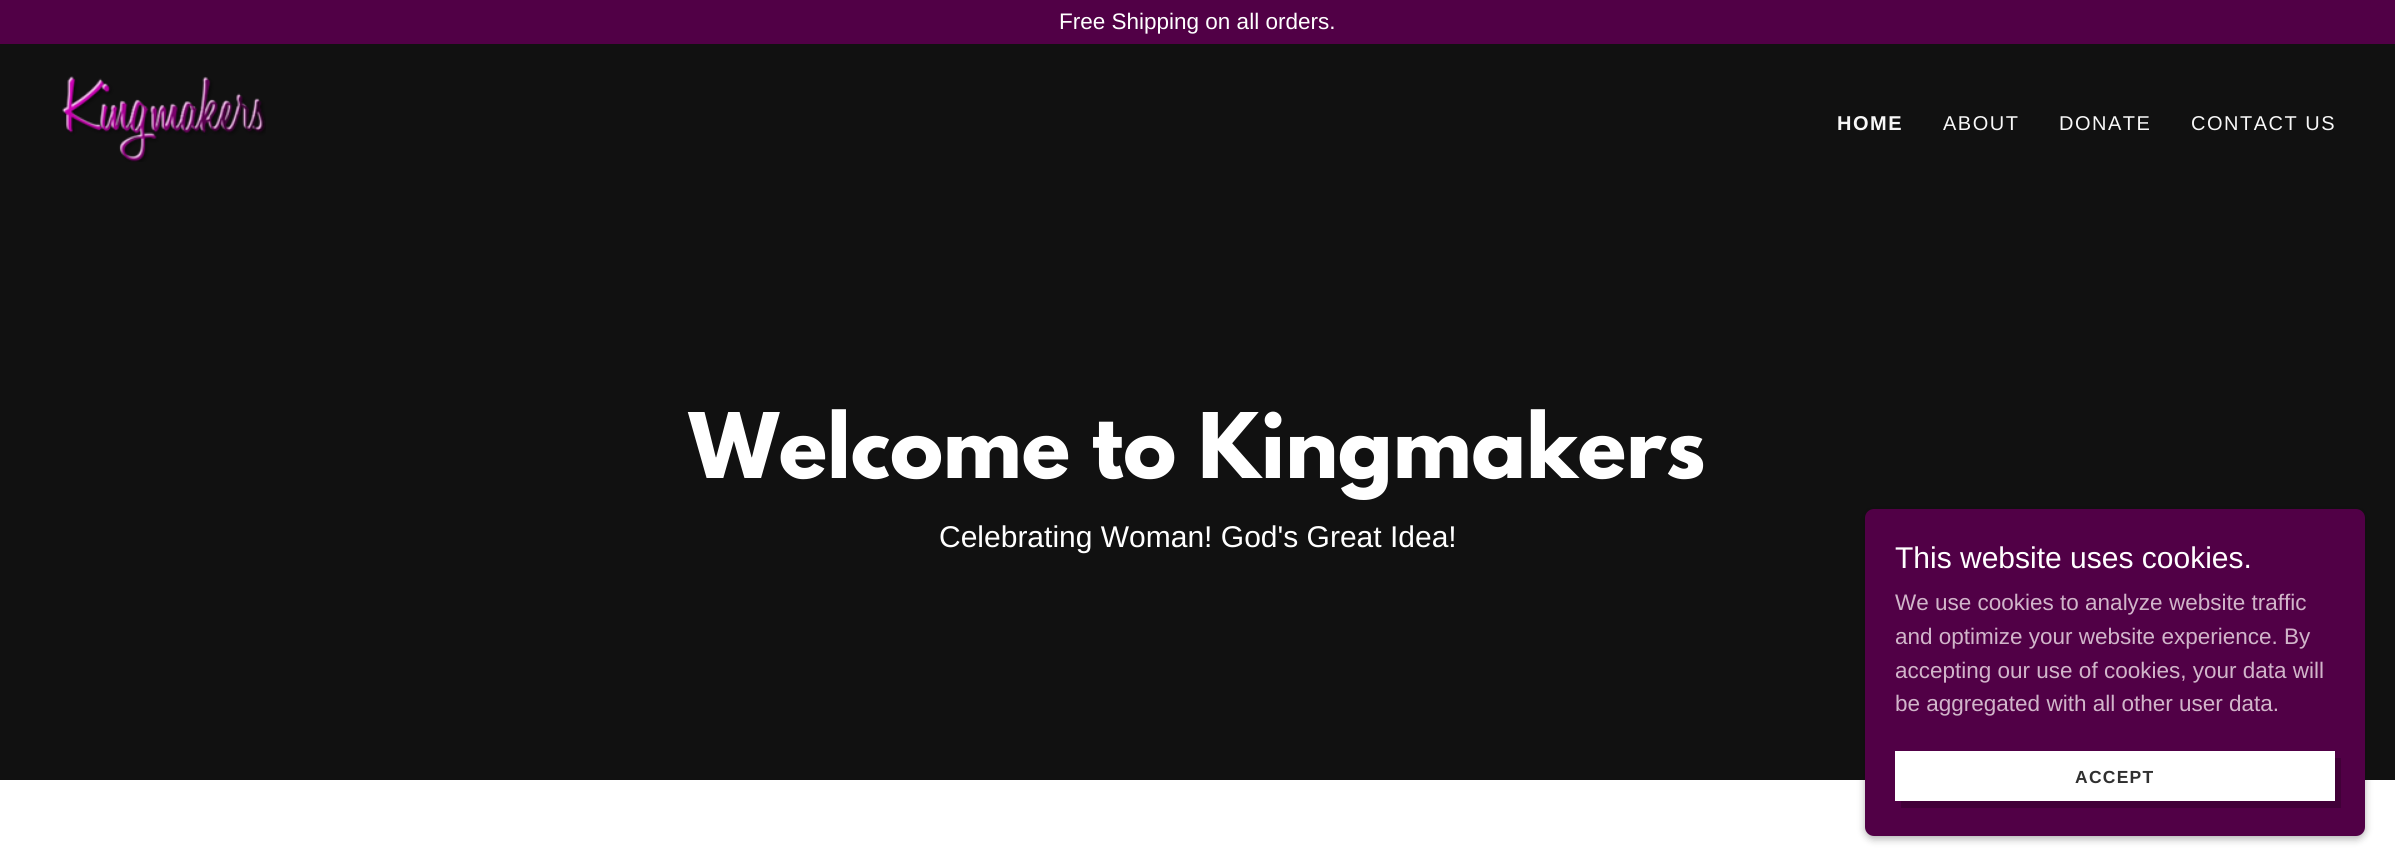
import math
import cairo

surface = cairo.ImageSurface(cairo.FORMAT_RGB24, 2395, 866)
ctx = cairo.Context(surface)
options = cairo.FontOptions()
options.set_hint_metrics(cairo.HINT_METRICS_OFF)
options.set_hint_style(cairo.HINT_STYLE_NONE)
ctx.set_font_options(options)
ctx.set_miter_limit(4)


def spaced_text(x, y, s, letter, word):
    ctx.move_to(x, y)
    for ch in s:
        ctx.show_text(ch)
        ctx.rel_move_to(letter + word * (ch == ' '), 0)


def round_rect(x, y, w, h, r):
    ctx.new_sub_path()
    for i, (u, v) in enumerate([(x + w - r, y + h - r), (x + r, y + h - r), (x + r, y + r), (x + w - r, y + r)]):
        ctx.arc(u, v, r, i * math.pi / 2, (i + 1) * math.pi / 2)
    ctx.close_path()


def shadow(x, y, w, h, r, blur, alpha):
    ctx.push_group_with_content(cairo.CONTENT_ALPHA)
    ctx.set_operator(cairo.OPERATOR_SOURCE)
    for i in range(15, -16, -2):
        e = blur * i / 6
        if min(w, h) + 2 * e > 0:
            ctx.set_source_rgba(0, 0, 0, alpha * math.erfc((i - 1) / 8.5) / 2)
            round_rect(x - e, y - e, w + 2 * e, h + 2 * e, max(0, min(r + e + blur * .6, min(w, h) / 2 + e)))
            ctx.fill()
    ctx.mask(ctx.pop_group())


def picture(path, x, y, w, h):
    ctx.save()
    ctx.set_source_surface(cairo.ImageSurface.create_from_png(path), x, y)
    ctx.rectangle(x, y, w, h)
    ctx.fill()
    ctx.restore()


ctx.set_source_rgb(1, 1, 1)
ctx.paint()
ctx.set_source_rgb(0.318, 0, 0.275)
ctx.rectangle(0, 0, 2395, 44)
ctx.fill()
ctx.select_font_face("Liberation Sans")
ctx.set_font_size(22.5)
ctx.set_source_rgb(1, 1, 1)
ctx.move_to(1059, 29)
ctx.show_text("Free Shipping on all orders.")
ctx.set_source_rgb(0.067, 0.067, 0.067)
ctx.rectangle(0, 44, 2395, 736)
ctx.fill()
picture("img1.png", 62, 76, 204, 86)
ctx.select_font_face("Liberation Sans", cairo.FONT_SLANT_NORMAL, cairo.FONT_WEIGHT_BOLD)
ctx.set_font_size(20)
ctx.set_source_rgb(0.969, 0.969, 0.969)
spaced_text(1837, 130, "HOME", 1.5, 0)
ctx.select_font_face("Liberation Sans")
spaced_text(1943, 130, "ABOUT", 1.5, 0)
spaced_text(2059, 130, "DONATE", 1.5, 0)
spaced_text(2191, 130, "CONTACT US", 1.5, 0)
ctx.select_font_face("League Spartan", cairo.FONT_SLANT_NORMAL, cairo.FONT_WEIGHT_BOLD)
ctx.set_font_size(80)
ctx.set_source_rgb(1, 1, 1)
ctx.move_to(689, 478)
ctx.show_text("Welcome to Kingmakers")
ctx.select_font_face("Liberation Sans")
ctx.set_font_size(30)
ctx.move_to(939, 547)
ctx.show_text("Celebrating Woman! God's Great Idea!")
ctx.set_source_rgb(0, 0, 0)
shadow(1865, 511, 500, 328, 9, 4, 0.3)
ctx.set_source_rgb(0.318, 0, 0.275)
round_rect(1865, 509, 500, 327, 9)
ctx.fill()
ctx.set_source_rgb(1, 1, 1)
ctx.move_to(1895, 568)
ctx.show_text("This website uses cookies.")
ctx.set_font_size(22.5)
ctx.set_source_rgb(0.82, 0.71, 0.792)
ctx.move_to(1895, 610)
ctx.show_text("We use cookies to analyze website traffic")
ctx.move_to(1895, 644)
ctx.show_text("and optimize your website experience. By")
ctx.move_to(1895, 678)
ctx.show_text("accepting our use of cookies, your data will")
ctx.move_to(1895, 711)
ctx.show_text("be aggregated with all other user data.")
ctx.set_source_rgb(1, 1, 1)
ctx.rectangle(1895, 751, 440, 50)
ctx.fill()
ctx.set_source_rgb(0.255, 0, 0.22)
ctx.new_path()
ctx.move_to(1901, 801)
ctx.line_to(1901, 808)
ctx.line_to(2341, 808)
ctx.line_to(2341, 758)
ctx.line_to(2335, 758)
ctx.line_to(2335, 801)
ctx.close_path()
ctx.fill()
ctx.select_font_face("Liberation Sans", cairo.FONT_SLANT_NORMAL, cairo.FONT_WEIGHT_BOLD)
ctx.set_font_size(17.5)
ctx.set_source_rgb(0.188, 0.188, 0.188)
spaced_text(2075, 783, "ACCEPT", 1.25, 0)
surface.write_to_png("page.png")
